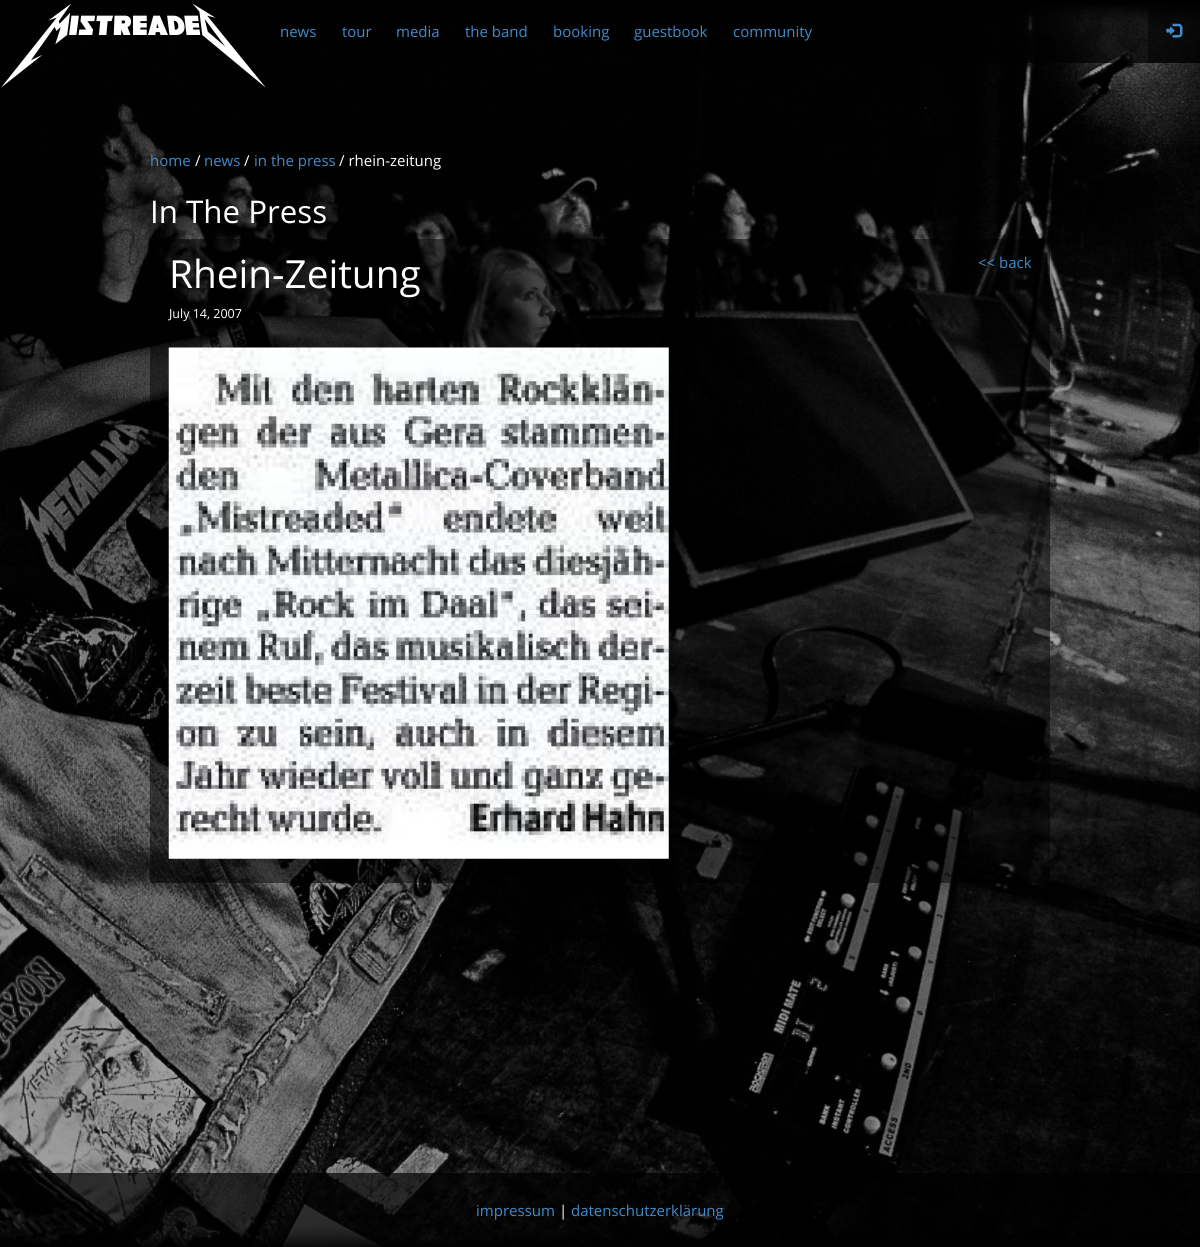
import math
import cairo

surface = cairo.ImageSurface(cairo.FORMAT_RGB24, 1200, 1247)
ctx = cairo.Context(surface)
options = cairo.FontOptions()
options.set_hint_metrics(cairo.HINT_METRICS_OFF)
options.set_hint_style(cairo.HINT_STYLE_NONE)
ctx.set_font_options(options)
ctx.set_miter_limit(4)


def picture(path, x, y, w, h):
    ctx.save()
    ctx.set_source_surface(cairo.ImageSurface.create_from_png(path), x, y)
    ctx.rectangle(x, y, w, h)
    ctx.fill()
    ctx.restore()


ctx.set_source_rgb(0, 0, 0)
ctx.paint()
picture("img1.png", 0, 4, 1200, 1243)
ctx.set_source_rgba(0, 0, 0, 0.7)
ctx.rectangle(690, 4, 510, 59)
ctx.fill()
ctx.select_font_face("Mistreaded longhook", cairo.FONT_SLANT_ITALIC)
ctx.set_font_size(64.5)
ctx.set_source_rgb(1, 1, 1)
ctx.move_to(0, 35)
ctx.show_text("MistreadED")
ctx.select_font_face("Open Sans")
ctx.set_font_size(15)
ctx.set_source_rgb(0.259, 0.545, 0.792)
ctx.move_to(280, 37)
ctx.show_text("news")
ctx.move_to(342, 37)
ctx.show_text("tour")
ctx.move_to(396, 37)
ctx.show_text("media")
ctx.move_to(465, 37)
ctx.show_text("the band")
ctx.move_to(553, 37)
ctx.show_text("booking")
ctx.set_source_rgba(0, 0, 0, 0.5)
ctx.rectangle(704, 34, 2, 8)
ctx.fill()
ctx.set_source_rgb(0.259, 0.545, 0.792)
ctx.move_to(634, 37)
ctx.show_text("guestbook")
ctx.move_to(733, 37)
ctx.show_text("community")
ctx.set_source_rgba(0, 0, 0, 0.5)
ctx.rectangle(1148, 7, 52, 56)
ctx.fill()
picture("img2.png", 1166, 23, 17, 15)
ctx.set_source_rgb(0.259, 0.545, 0.792)
ctx.move_to(150, 166)
ctx.show_text("home")
ctx.set_source_rgb(1, 1, 1)
ctx.move_to(195, 166)
ctx.show_text("/")
ctx.set_source_rgb(0.259, 0.545, 0.792)
ctx.move_to(204, 166)
ctx.show_text("news")
ctx.set_source_rgb(1, 1, 1)
ctx.move_to(244, 166)
ctx.show_text("/")
ctx.set_source_rgb(0.259, 0.545, 0.792)
ctx.move_to(254, 166)
ctx.show_text("in the press")
ctx.set_source_rgb(1, 1, 1)
ctx.move_to(339, 166)
ctx.show_text("/ rhein-zeitung")
ctx.set_font_size(31.25)
ctx.move_to(150, 223)
ctx.show_text("In The Press")
ctx.set_source_rgba(0, 0, 0, 0.5)
ctx.rectangle(150, 239, 900, 644)
ctx.fill()
ctx.set_font_size(38.75)
ctx.set_source_rgb(1, 1, 1)
ctx.move_to(169, 288)
ctx.show_text("Rhein-Zeitung")
ctx.set_font_size(15)
ctx.set_source_rgb(0.259, 0.545, 0.792)
ctx.move_to(978, 268)
ctx.show_text("<< back")
ctx.set_font_size(12.5)
ctx.set_source_rgb(1, 1, 1)
ctx.move_to(169, 318)
ctx.show_text("July 14, 2007")
picture("img3.png", 168, 347, 501, 512)
ctx.set_source_rgba(0, 0, 0, 0.7)
ctx.rectangle(0, 1173, 1200, 74)
ctx.fill()
ctx.set_font_size(15)
ctx.set_source_rgb(0.259, 0.545, 0.792)
ctx.move_to(476, 1216)
ctx.show_text("impressum")
ctx.set_source_rgb(1, 1, 1)
ctx.move_to(559, 1216)
ctx.show_text("|")
ctx.set_source_rgb(0.259, 0.545, 0.792)
ctx.move_to(571, 1216)
ctx.show_text("datenschutzerklärung")
surface.write_to_png("page.png")
